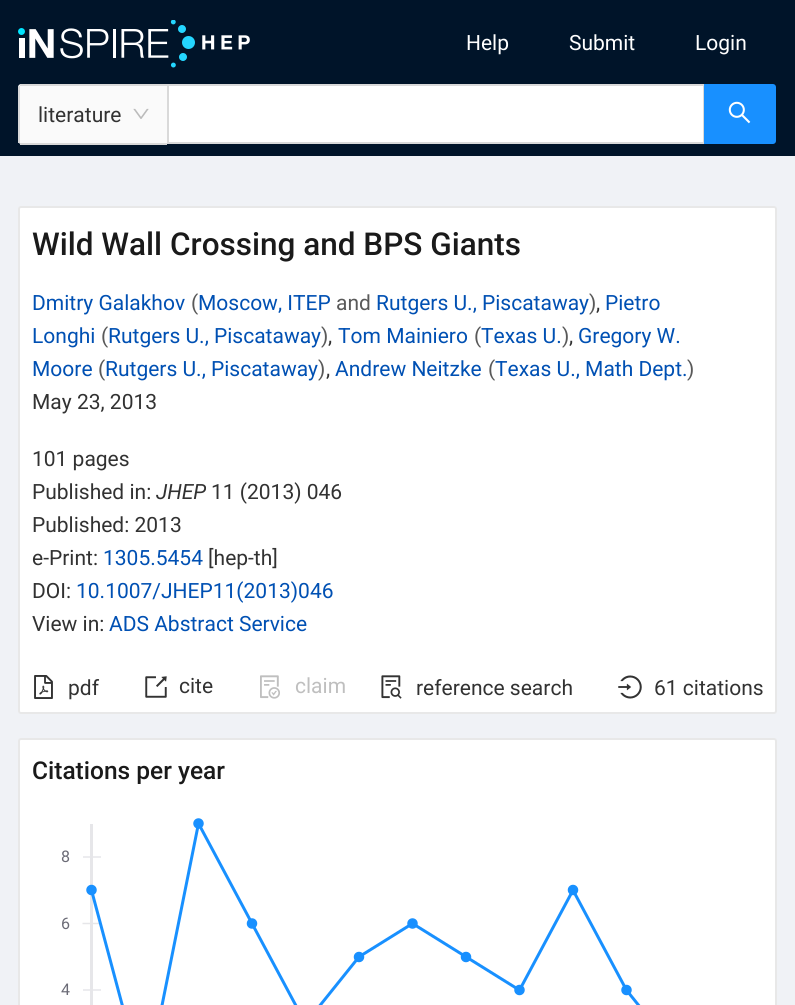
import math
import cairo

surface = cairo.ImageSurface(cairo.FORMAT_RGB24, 795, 1005)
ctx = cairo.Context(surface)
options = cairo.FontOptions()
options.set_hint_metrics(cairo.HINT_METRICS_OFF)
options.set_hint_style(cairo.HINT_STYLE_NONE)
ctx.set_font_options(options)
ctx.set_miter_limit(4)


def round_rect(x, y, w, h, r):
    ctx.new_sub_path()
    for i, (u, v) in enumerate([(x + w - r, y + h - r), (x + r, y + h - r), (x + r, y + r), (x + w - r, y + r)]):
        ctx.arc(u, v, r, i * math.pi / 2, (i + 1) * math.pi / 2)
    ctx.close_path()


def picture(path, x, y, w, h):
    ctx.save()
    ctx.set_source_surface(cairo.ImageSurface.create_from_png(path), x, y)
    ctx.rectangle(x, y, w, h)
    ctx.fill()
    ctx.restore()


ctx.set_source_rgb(0.941, 0.949, 0.961)
ctx.paint()
ctx.set_source_rgb(0, 0.082, 0.161)
ctx.rectangle(0, 0, 795, 156)
ctx.fill()
picture("img1.png", 18, 20, 232, 48)
ctx.select_font_face("Roboto")
ctx.set_font_size(21)
ctx.set_source_rgb(1, 1, 1)
ctx.move_to(466, 50)
ctx.show_text("Help")
ctx.move_to(569, 50)
ctx.show_text("Submit")
ctx.move_to(695, 50)
ctx.show_text("Login")
ctx.set_source_rgb(0.98, 0.98, 0.98)
ctx.new_path()
ctx.move_to(21, 84)
ctx.line_to(167, 84)
ctx.line_to(167, 144)
ctx.line_to(21, 144)
ctx.curve_to(19.5, 144, 18, 142.5, 18, 141)
ctx.line_to(18, 87)
ctx.curve_to(18, 85.5, 19.5, 84, 21, 84)
ctx.close_path()
ctx.fill()
ctx.set_source_rgb(0.851, 0.851, 0.851)
ctx.rectangle(20, 84, 147, 2)
ctx.fill()
ctx.rectangle(20, 143, 147, 2)
ctx.fill()
ctx.rectangle(18, 86, 2, 57)
ctx.fill()
ctx.set_source_rgb(0.196, 0.196, 0.196)
ctx.move_to(38, 122)
ctx.show_text("literature")
picture("img2.png", 133, 108, 16, 11)
ctx.set_source_rgb(1, 1, 1)
ctx.rectangle(168, 85, 536, 58)
ctx.fill_preserve()
ctx.set_source_rgb(0.851, 0.851, 0.851)
ctx.stroke()
ctx.set_source_rgb(0.094, 0.565, 1)
ctx.new_path()
ctx.move_to(705, 85)
ctx.line_to(773, 85)
ctx.curve_to(774, 85, 775, 86, 775, 87)
ctx.line_to(775, 141)
ctx.curve_to(775, 142, 774, 143, 773, 143)
ctx.line_to(705, 143)
ctx.close_path()
ctx.fill_preserve()
ctx.stroke()
picture("img3.png", 728, 101, 23, 23)
ctx.set_source_rgb(1, 1, 1)
round_rect(19, 207, 757, 506, 2)
ctx.fill_preserve()
ctx.set_source_rgb(0.91, 0.91, 0.91)
ctx.stroke()
ctx.select_font_face("Roboto Medium")
ctx.set_font_size(31.5)
ctx.set_source_rgb(0.102, 0.102, 0.102)
ctx.move_to(32, 255)
ctx.show_text("Wild Wall Crossing and BPS Giants")
ctx.select_font_face("Roboto")
ctx.set_font_size(21)
ctx.set_source_rgb(0, 0.314, 0.702)
ctx.move_to(32, 310)
ctx.show_text("Dmitry Galakhov")
ctx.set_source_rgb(0.349, 0.349, 0.349)
ctx.move_to(191, 310)
ctx.show_text("(")
ctx.set_source_rgb(0, 0.314, 0.702)
ctx.move_to(198, 310)
ctx.show_text("Moscow, ITEP")
ctx.set_source_rgb(0.349, 0.349, 0.349)
ctx.move_to(336, 310)
ctx.show_text("and")
ctx.set_source_rgb(0, 0.314, 0.702)
ctx.move_to(376, 310)
ctx.show_text("Rutgers U., Piscataway")
ctx.set_source_rgb(0.349, 0.349, 0.349)
ctx.move_to(589, 310)
ctx.show_text(")")
ctx.set_source_rgb(0.196, 0.196, 0.196)
ctx.move_to(596, 310)
ctx.show_text(",")
ctx.set_source_rgb(0, 0.314, 0.702)
ctx.move_to(605, 310)
ctx.show_text("Pietro")
ctx.move_to(32, 343)
ctx.show_text("Longhi")
ctx.set_source_rgb(0.349, 0.349, 0.349)
ctx.move_to(101, 343)
ctx.show_text("(")
ctx.set_source_rgb(0, 0.314, 0.702)
ctx.move_to(108, 343)
ctx.show_text("Rutgers U., Piscataway")
ctx.set_source_rgb(0.349, 0.349, 0.349)
ctx.move_to(321, 343)
ctx.show_text(")")
ctx.set_source_rgb(0.196, 0.196, 0.196)
ctx.move_to(328, 343)
ctx.show_text(",")
ctx.set_source_rgb(0, 0.314, 0.702)
ctx.move_to(338, 343)
ctx.show_text("Tom Mainiero")
ctx.set_source_rgb(0.349, 0.349, 0.349)
ctx.move_to(474, 343)
ctx.show_text("(")
ctx.set_source_rgb(0, 0.314, 0.702)
ctx.move_to(481, 343)
ctx.show_text("Texas U.")
ctx.set_source_rgb(0.349, 0.349, 0.349)
ctx.move_to(562, 343)
ctx.show_text(")")
ctx.set_source_rgb(0.196, 0.196, 0.196)
ctx.move_to(569, 343)
ctx.show_text(",")
ctx.set_source_rgb(0, 0.314, 0.702)
ctx.move_to(578, 343)
ctx.show_text("Gregory W.")
ctx.move_to(32, 376)
ctx.show_text("Moore")
ctx.set_source_rgb(0.349, 0.349, 0.349)
ctx.move_to(98, 376)
ctx.show_text("(")
ctx.set_source_rgb(0, 0.314, 0.702)
ctx.move_to(105, 376)
ctx.show_text("Rutgers U., Piscataway")
ctx.set_source_rgb(0.349, 0.349, 0.349)
ctx.move_to(318, 376)
ctx.show_text(")")
ctx.set_source_rgb(0.196, 0.196, 0.196)
ctx.move_to(326, 376)
ctx.show_text(",")
ctx.set_source_rgb(0, 0.314, 0.702)
ctx.move_to(335, 376)
ctx.show_text("Andrew Neitzke")
ctx.set_source_rgb(0.349, 0.349, 0.349)
ctx.move_to(488, 376)
ctx.show_text("(")
ctx.set_source_rgb(0, 0.314, 0.702)
ctx.move_to(495, 376)
ctx.show_text("Texas U., Math Dept.")
ctx.set_source_rgb(0.349, 0.349, 0.349)
ctx.move_to(687, 376)
ctx.show_text(")")
ctx.set_source_rgb(0.196, 0.196, 0.196)
ctx.move_to(32, 409)
ctx.show_text("May 23, 2013")
ctx.move_to(32, 466)
ctx.show_text("101 pages")
ctx.move_to(32, 499)
ctx.show_text("Published in:")
ctx.select_font_face("Roboto", cairo.FONT_SLANT_ITALIC)
ctx.move_to(156, 499)
ctx.show_text("JHEP")
ctx.select_font_face("Roboto")
ctx.move_to(211, 499)
ctx.show_text("11 (2013) 046")
ctx.move_to(32, 532)
ctx.show_text("Published: 2013")
ctx.move_to(32, 565)
ctx.show_text("e-Print:")
ctx.set_source_rgb(0, 0.314, 0.702)
ctx.move_to(103, 565)
ctx.show_text("1305.5454")
ctx.set_source_rgb(0.196, 0.196, 0.196)
ctx.move_to(208, 565)
ctx.show_text("[hep-th]")
ctx.move_to(32, 598)
ctx.show_text("DOI:")
ctx.set_source_rgb(0, 0.314, 0.702)
ctx.move_to(76, 598)
ctx.show_text("10.1007/JHEP11(2013)046")
ctx.set_source_rgb(0.196, 0.196, 0.196)
ctx.move_to(32, 631)
ctx.show_text("View in:")
ctx.set_source_rgb(0, 0.314, 0.702)
ctx.move_to(109, 631)
ctx.show_text("ADS Abstract Service")
picture("img4.png", 34, 675, 19, 24)
ctx.set_source_rgb(0.196, 0.196, 0.196)
ctx.move_to(68, 695)
ctx.show_text("pdf")
picture("img5.png", 145, 676, 22, 22)
ctx.move_to(179, 693)
ctx.show_text("cite")
picture("img6.png", 260, 675, 20, 24)
ctx.set_source_rgb(0.749, 0.749, 0.749)
ctx.move_to(295, 693)
ctx.show_text("claim")
picture("img7.png", 381, 675, 21, 24)
ctx.set_source_rgb(0.196, 0.196, 0.196)
ctx.move_to(416, 695)
ctx.show_text("reference search")
picture("img8.png", 618, 675, 24, 24)
ctx.move_to(654, 695)
ctx.show_text("61 citations")
ctx.set_source_rgb(1, 1, 1)
round_rect(19, 739, 757, 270, 2)
ctx.fill_preserve()
ctx.set_source_rgb(0.91, 0.91, 0.91)
ctx.stroke()
ctx.select_font_face("Roboto Medium")
ctx.set_font_size(24.5)
ctx.set_source_rgb(0.102, 0.102, 0.102)
ctx.move_to(32, 779)
ctx.show_text("Citations per year")
picture("img9.png", 82, 818, 559, 187)
ctx.select_font_face("Roboto")
ctx.set_font_size(16)
ctx.set_source_rgb(0.42, 0.42, 0.463)
ctx.move_to(61, 862)
ctx.show_text("8")
ctx.move_to(61, 929)
ctx.show_text("6")
ctx.move_to(61, 995)
ctx.show_text("4")
surface.write_to_png("page.png")
